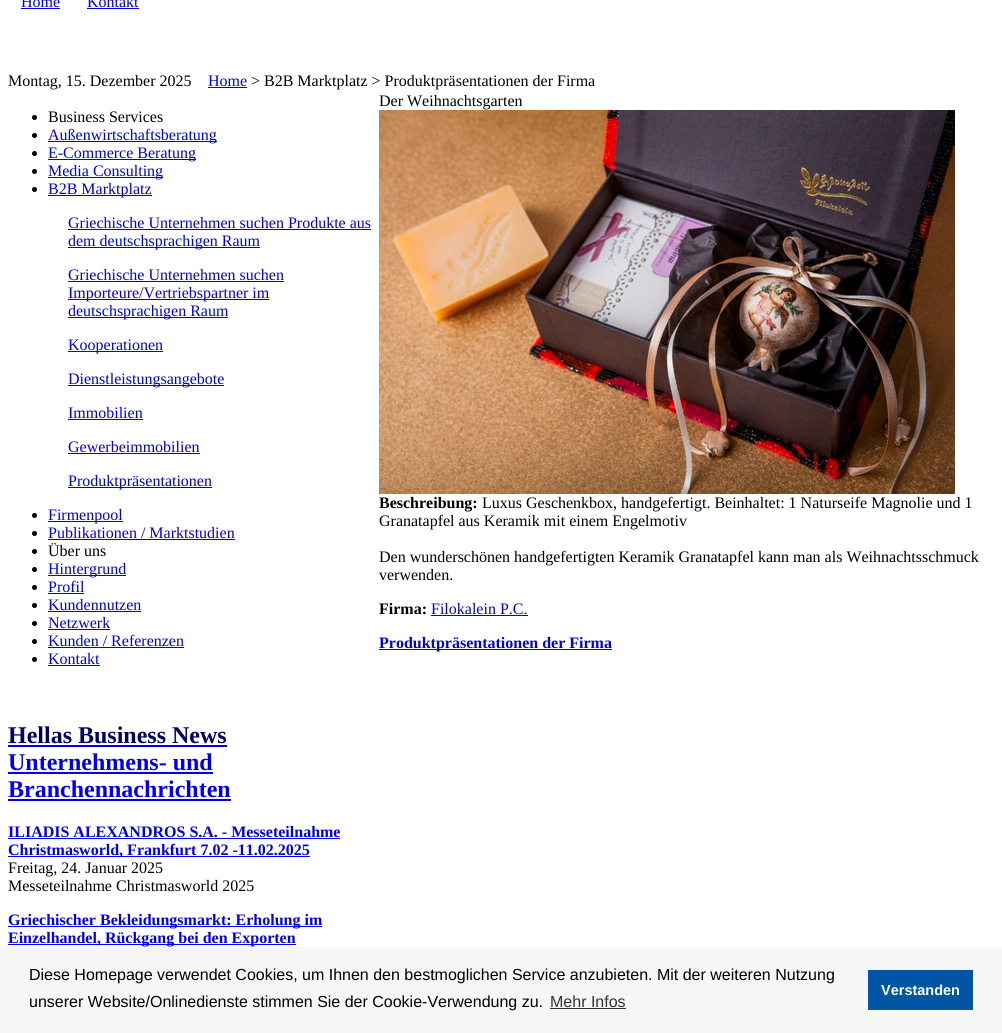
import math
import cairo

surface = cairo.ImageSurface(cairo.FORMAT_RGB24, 1002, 1033)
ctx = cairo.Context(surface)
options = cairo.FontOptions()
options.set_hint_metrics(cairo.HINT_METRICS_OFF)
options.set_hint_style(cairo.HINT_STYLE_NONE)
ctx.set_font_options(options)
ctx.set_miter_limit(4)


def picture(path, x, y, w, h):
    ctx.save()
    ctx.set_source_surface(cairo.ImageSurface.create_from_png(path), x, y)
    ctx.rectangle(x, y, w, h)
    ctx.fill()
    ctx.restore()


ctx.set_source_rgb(1, 1, 1)
ctx.paint()
ctx.select_font_face("Liberation Serif")
ctx.set_font_size(16)
ctx.set_source_rgb(0, 0, 0.933)
ctx.move_to(21, 7)
ctx.show_text("Home")
ctx.rectangle(21, 8, 39, 1)
ctx.fill()
ctx.move_to(87, 7)
ctx.show_text("Kontakt")
ctx.rectangle(87, 8, 52, 1)
ctx.fill()
ctx.set_source_rgb(0, 0, 0)
ctx.move_to(8, 86)
ctx.show_text("Montag, 15. Dezember 2025")
ctx.set_source_rgb(0, 0, 0.933)
ctx.move_to(208, 86)
ctx.show_text("Home")
ctx.rectangle(208, 87, 39, 1)
ctx.fill()
ctx.set_source_rgb(0, 0, 0)
ctx.move_to(251, 86)
ctx.show_text("> B2B Marktplatz > Produktpräsentationen der Firma")
ctx.new_path()
ctx.arc(34.5, 117.5, 2.5, 0, 2 * math.pi)
ctx.fill()
ctx.move_to(48, 122)
ctx.show_text("Business Services")
ctx.new_path()
ctx.arc(34.5, 135.5, 2.5, 0, 2 * math.pi)
ctx.fill()
ctx.set_source_rgb(0, 0, 0.933)
ctx.rectangle(48, 141, 169, 1)
ctx.fill()
ctx.move_to(48, 140)
ctx.show_text("Außenwirtschaftsberatung")
ctx.set_source_rgb(0, 0, 0)
ctx.new_path()
ctx.arc(34.5, 153.5, 2.5, 0, 2 * math.pi)
ctx.fill()
ctx.set_source_rgb(0, 0, 0.933)
ctx.rectangle(48, 159, 148, 1)
ctx.fill()
ctx.move_to(48, 158)
ctx.show_text("E-Commerce Beratung")
ctx.set_source_rgb(0, 0, 0)
ctx.new_path()
ctx.arc(34.5, 171.5, 2.5, 0, 2 * math.pi)
ctx.fill()
ctx.set_source_rgb(0, 0, 0.933)
ctx.rectangle(48, 177, 115, 1)
ctx.fill()
ctx.move_to(48, 176)
ctx.show_text("Media Consulting")
ctx.set_source_rgb(0, 0, 0)
ctx.new_path()
ctx.arc(34.5, 189.5, 2.5, 0, 2 * math.pi)
ctx.fill()
ctx.set_source_rgb(0, 0, 0.933)
ctx.rectangle(48, 195, 104, 1)
ctx.fill()
ctx.move_to(48, 194)
ctx.show_text("B2B Marktplatz")
ctx.move_to(68, 228)
ctx.show_text("Griechische Unternehmen suchen Produkte aus")
ctx.rectangle(68, 229, 303, 1)
ctx.fill()
ctx.rectangle(68, 247, 192, 1)
ctx.fill()
ctx.move_to(68, 246)
ctx.show_text("dem deutschsprachigen Raum")
ctx.move_to(68, 280)
ctx.show_text("Griechische Unternehmen suchen")
ctx.rectangle(68, 281, 216, 1)
ctx.fill()
ctx.rectangle(68, 299, 201, 1)
ctx.fill()
ctx.move_to(68, 298)
ctx.show_text("Importeure/Vertriebspartner im")
ctx.rectangle(68, 317, 160, 1)
ctx.fill()
ctx.move_to(68, 316)
ctx.show_text("deutschsprachigen Raum")
ctx.rectangle(68, 351, 95, 1)
ctx.fill()
ctx.move_to(68, 350)
ctx.show_text("Kooperationen")
ctx.rectangle(68, 385, 156, 1)
ctx.fill()
ctx.move_to(68, 384)
ctx.show_text("Dienstleistungsangebote")
ctx.move_to(68, 418)
ctx.show_text("Immobilien")
ctx.rectangle(68, 419, 75, 1)
ctx.fill()
ctx.move_to(68, 452)
ctx.show_text("Gewerbeimmobilien")
ctx.rectangle(68, 453, 132, 1)
ctx.fill()
ctx.rectangle(68, 487, 144, 1)
ctx.fill()
ctx.move_to(68, 486)
ctx.show_text("Produktpräsentationen")
ctx.set_source_rgb(0, 0, 0)
ctx.new_path()
ctx.arc(34.5, 515.5, 2.5, 0, 2 * math.pi)
ctx.fill()
ctx.set_source_rgb(0, 0, 0.933)
ctx.rectangle(48, 521, 75, 1)
ctx.fill()
ctx.move_to(48, 520)
ctx.show_text("Firmenpool")
ctx.set_source_rgb(0, 0, 0)
ctx.new_path()
ctx.arc(34.5, 533.5, 2.5, 0, 2 * math.pi)
ctx.fill()
ctx.set_source_rgb(0, 0, 0.933)
ctx.move_to(48, 538)
ctx.show_text("Publikationen / Marktstudien")
ctx.rectangle(48, 539, 187, 1)
ctx.fill()
ctx.set_source_rgb(0, 0, 0)
ctx.arc(34.5, 551.5, 2.5, 0, 2 * math.pi)
ctx.fill()
ctx.move_to(48, 556)
ctx.show_text("Über uns")
ctx.new_path()
ctx.arc(34.5, 569.5, 2.5, 0, 2 * math.pi)
ctx.fill()
ctx.set_source_rgb(0, 0, 0.933)
ctx.rectangle(48, 575, 78, 1)
ctx.fill()
ctx.move_to(48, 574)
ctx.show_text("Hintergrund")
ctx.set_source_rgb(0, 0, 0)
ctx.new_path()
ctx.arc(34.5, 587.5, 2.5, 0, 2 * math.pi)
ctx.fill()
ctx.set_source_rgb(0, 0, 0.933)
ctx.move_to(48, 592)
ctx.show_text("Profil")
ctx.rectangle(48, 593, 36, 1)
ctx.fill()
ctx.set_source_rgb(0, 0, 0)
ctx.arc(34.5, 605.5, 2.5, 0, 2 * math.pi)
ctx.fill()
ctx.set_source_rgb(0, 0, 0.933)
ctx.move_to(48, 610)
ctx.show_text("Kundennutzen")
ctx.rectangle(48, 611, 93, 1)
ctx.fill()
ctx.set_source_rgb(0, 0, 0)
ctx.arc(34.5, 623.5, 2.5, 0, 2 * math.pi)
ctx.fill()
ctx.set_source_rgb(0, 0, 0.933)
ctx.move_to(48, 628)
ctx.show_text("Netzwerk")
ctx.rectangle(48, 629, 62, 1)
ctx.fill()
ctx.set_source_rgb(0, 0, 0)
ctx.arc(34.5, 641.5, 2.5, 0, 2 * math.pi)
ctx.fill()
ctx.set_source_rgb(0, 0, 0.933)
ctx.move_to(48, 646)
ctx.show_text("Kunden / Referenzen")
ctx.rectangle(48, 647, 136, 1)
ctx.fill()
ctx.set_source_rgb(0, 0, 0)
ctx.arc(34.5, 659.5, 2.5, 0, 2 * math.pi)
ctx.fill()
ctx.set_source_rgb(0, 0, 0.933)
ctx.move_to(48, 664)
ctx.show_text("Kontakt")
ctx.rectangle(48, 665, 52, 1)
ctx.fill()
ctx.select_font_face("Liberation Serif", cairo.FONT_SLANT_NORMAL, cairo.FONT_WEIGHT_BOLD)
ctx.set_font_size(24)
ctx.set_source_rgb(0, 0, 0.4)
ctx.move_to(8, 743)
ctx.show_text("Hellas Business News")
ctx.set_source_rgb(0, 0, 0.933)
ctx.rectangle(8, 745, 219, 2)
ctx.fill()
ctx.move_to(8, 770)
ctx.show_text("Unternehmens- und")
ctx.rectangle(8, 772, 205, 2)
ctx.fill()
ctx.move_to(8, 797)
ctx.show_text("Branchennachrichten")
ctx.rectangle(8, 799, 223, 2)
ctx.fill()
ctx.set_font_size(16)
ctx.move_to(8, 837)
ctx.show_text("ILIADIS ALEXANDROS S.A. - Messeteilnahme")
ctx.rectangle(8, 838, 332, 1)
ctx.fill()
ctx.rectangle(8, 856, 302, 1)
ctx.fill()
ctx.move_to(8, 855)
ctx.show_text("Christmasworld, Frankfurt 7.02 -11.02.2025")
ctx.select_font_face("Liberation Serif")
ctx.set_source_rgb(0, 0, 0)
ctx.move_to(8, 873)
ctx.show_text("Freitag, 24. Januar 2025")
ctx.move_to(8, 891)
ctx.show_text("Messeteilnahme Christmasworld 2025")
ctx.set_source_rgb(0, 0, 0.933)
ctx.rectangle(8, 926, 314, 1)
ctx.fill()
ctx.select_font_face("Liberation Serif", cairo.FONT_SLANT_NORMAL, cairo.FONT_WEIGHT_BOLD)
ctx.move_to(8, 925)
ctx.show_text("Griechischer Bekleidungsmarkt: Erholung im")
ctx.rectangle(8, 944, 288, 1)
ctx.fill()
ctx.move_to(8, 943)
ctx.show_text("Einzelhandel, Rückgang bei den Exporten")
ctx.select_font_face("Liberation Serif")
ctx.set_source_rgb(0, 0, 0)
ctx.move_to(379, 106)
ctx.show_text("Der Weihnachtsgarten")
picture("img1.png", 379, 110, 576, 384)
ctx.select_font_face("Liberation Serif", cairo.FONT_SLANT_NORMAL, cairo.FONT_WEIGHT_BOLD)
ctx.move_to(379, 508)
ctx.show_text("Beschreibung:")
ctx.select_font_face("Liberation Serif")
ctx.move_to(482, 508)
ctx.show_text("Luxus Geschenkbox, handgefertigt. Beinhaltet: 1 Naturseife Magnolie und 1")
ctx.move_to(379, 526)
ctx.show_text("Granatapfel aus Keramik mit einem Engelmotiv")
ctx.move_to(379, 562)
ctx.show_text("Den wunderschönen handgefertigten Κeramik Granatapfel kann man als Weihnachtsschmuck")
ctx.move_to(379, 580)
ctx.show_text("verwenden.")
ctx.select_font_face("Liberation Serif", cairo.FONT_SLANT_NORMAL, cairo.FONT_WEIGHT_BOLD)
ctx.move_to(379, 614)
ctx.show_text("Firma:")
ctx.select_font_face("Liberation Serif")
ctx.set_source_rgb(0, 0, 0.933)
ctx.move_to(431, 614)
ctx.show_text("Filokalein P.C.")
ctx.rectangle(431, 615, 97, 1)
ctx.fill()
ctx.rectangle(379, 649, 233, 1)
ctx.fill()
ctx.select_font_face("Liberation Serif", cairo.FONT_SLANT_NORMAL, cairo.FONT_WEIGHT_BOLD)
ctx.move_to(379, 648)
ctx.show_text("Produktpräsentationen der Firma")
ctx.set_source_rgb(0.961, 0.961, 0.961)
ctx.rectangle(0, 947, 1002, 86)
ctx.fill()
ctx.select_font_face("Liberation Sans")
ctx.set_source_rgb(0, 0, 0)
ctx.move_to(29, 980)
ctx.show_text("Diese Homepage verwendet Cookies, um Ihnen den bestmoglichen Service anzubieten. Mit der weiteren Nutzung")
ctx.move_to(29, 1007)
ctx.show_text("unserer Website/Onlinedienste stimmen Sie der Cookie-Verwendung zu.")
ctx.set_source_rgb(0.192, 0.192, 0.192)
ctx.move_to(550, 1007)
ctx.show_text("Mehr Infos")
ctx.rectangle(550, 1008, 76, 1)
ctx.fill()
ctx.set_source_rgb(0, 0.333, 0.647)
ctx.rectangle(868, 970, 105, 40)
ctx.fill()
ctx.select_font_face("Liberation Sans", cairo.FONT_SLANT_NORMAL, cairo.FONT_WEIGHT_BOLD)
ctx.set_font_size(14.5)
ctx.set_source_rgb(1, 1, 1)
ctx.move_to(881, 995)
ctx.show_text("Verstanden")
surface.write_to_png("page.png")
